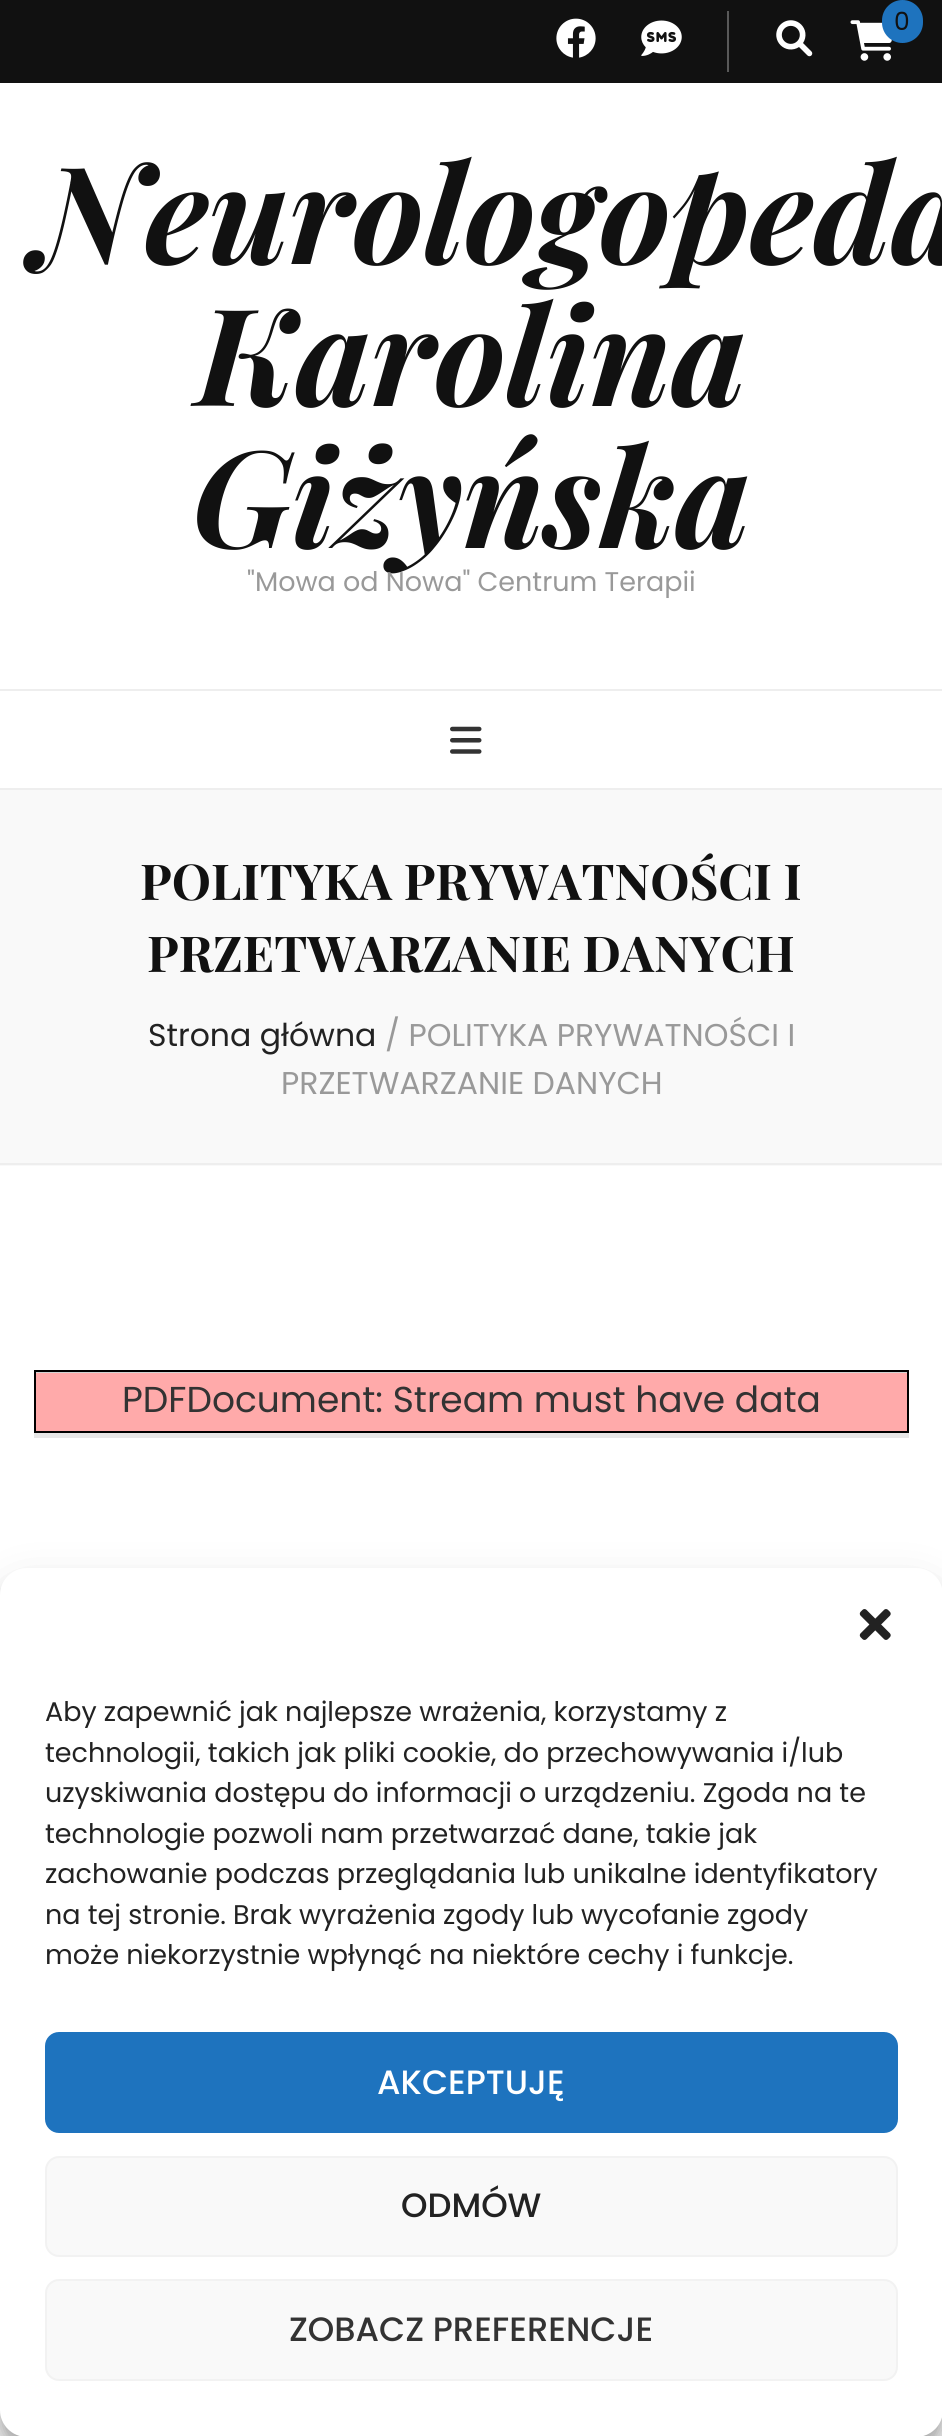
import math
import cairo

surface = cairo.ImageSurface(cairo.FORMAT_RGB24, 942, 2436)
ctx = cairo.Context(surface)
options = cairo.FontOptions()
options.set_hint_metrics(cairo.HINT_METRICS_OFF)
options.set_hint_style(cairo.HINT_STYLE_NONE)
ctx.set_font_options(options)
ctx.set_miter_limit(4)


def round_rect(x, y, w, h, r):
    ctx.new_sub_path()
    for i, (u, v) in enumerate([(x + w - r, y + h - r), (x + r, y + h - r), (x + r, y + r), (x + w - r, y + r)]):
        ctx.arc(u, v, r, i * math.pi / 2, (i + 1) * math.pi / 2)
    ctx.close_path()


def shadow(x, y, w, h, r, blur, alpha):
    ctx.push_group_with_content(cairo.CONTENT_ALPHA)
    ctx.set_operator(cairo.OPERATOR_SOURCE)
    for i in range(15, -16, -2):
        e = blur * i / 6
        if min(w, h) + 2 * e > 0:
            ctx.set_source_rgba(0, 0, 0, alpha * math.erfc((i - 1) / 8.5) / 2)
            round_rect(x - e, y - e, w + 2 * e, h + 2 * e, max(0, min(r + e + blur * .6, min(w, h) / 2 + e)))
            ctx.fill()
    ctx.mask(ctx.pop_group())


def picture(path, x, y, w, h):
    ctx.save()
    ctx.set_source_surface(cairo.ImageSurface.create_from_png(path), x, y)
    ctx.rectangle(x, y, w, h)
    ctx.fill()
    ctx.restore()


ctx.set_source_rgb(1, 1, 1)
ctx.paint()
ctx.set_source_rgb(0.067, 0.067, 0.067)
ctx.rectangle(0, 0, 942, 83)
ctx.fill()
ctx.set_source_rgb(0.349, 0.349, 0.349)
ctx.rectangle(727, 11, 2, 61)
ctx.fill()
picture("img1.png", 556, 18, 40, 40)
picture("img2.png", 641, 20, 41, 36)
picture("img3.png", 776, 20, 37, 37)
picture("img4.png", 850, 20, 42, 41)
ctx.set_source_rgb(0.118, 0.451, 0.745)
round_rect(882, 0, 41, 43, 20.5)
ctx.fill()
ctx.select_font_face("Poppins")
ctx.set_font_size(25)
ctx.set_source_rgb(0.067, 0.067, 0.067)
ctx.move_to(894, 30)
ctx.show_text("0")
ctx.select_font_face("Playfair Display", cairo.FONT_SLANT_ITALIC, cairo.FONT_WEIGHT_BOLD)
ctx.set_font_size(135)
ctx.move_to(34, 264)
ctx.show_text("Neurologopeda")
ctx.move_to(196, 406)
ctx.show_text("Karolina")
ctx.move_to(192, 548)
ctx.show_text("Giżyńska")
ctx.select_font_face("Poppins")
ctx.set_font_size(27)
ctx.set_source_rgb(0.6, 0.6, 0.6)
ctx.move_to(247, 591)
ctx.show_text("\"Mowa od Nowa\" Centrum Terapii")
ctx.set_source_rgb(0.933, 0.933, 0.933)
ctx.rectangle(0, 689, 942, 2)
ctx.fill()
ctx.rectangle(0, 788, 942, 2)
ctx.fill()
picture("img5.png", 450, 726, 32, 28)
ctx.set_source_rgb(0.976, 0.976, 0.976)
ctx.rectangle(0, 790, 942, 376)
ctx.fill()
ctx.set_source_rgb(0.933, 0.933, 0.933)
ctx.rectangle(0, 1163, 942, 2)
ctx.fill()
ctx.select_font_face("Playfair Display", cairo.FONT_SLANT_NORMAL, cairo.FONT_WEIGHT_BOLD)
ctx.set_font_size(49.5)
ctx.set_source_rgb(0.067, 0.067, 0.067)
ctx.move_to(140, 900)
ctx.show_text("POLITYKA PRYWATNOŚCI I")
ctx.move_to(147, 972)
ctx.show_text("PRZETWARZANIE DANYCH")
ctx.select_font_face("Poppins")
ctx.set_font_size(31.5)
ctx.set_source_rgb(0.133, 0.133, 0.133)
ctx.move_to(148, 1046)
ctx.show_text("Strona główna")
ctx.set_source_rgb(0.6, 0.6, 0.6)
ctx.move_to(385, 1046)
ctx.show_text("/ POLITYKA PRYWATNOŚCI I")
ctx.move_to(281, 1094)
ctx.show_text("PRZETWARZANIE DANYCH")
ctx.set_source_rgb(0.827, 0.827, 0.827)
ctx.rectangle(36, 1372, 871, 1)
ctx.fill()
ctx.rectangle(35, 1371, 873, 61)
ctx.set_source_rgb(0, 0, 0)
ctx.stroke()
ctx.set_source_rgb(1, 0.667, 0.667)
ctx.rectangle(36, 1373, 871, 58)
ctx.fill()
ctx.set_font_size(36)
ctx.set_source_rgb(0.2, 0.2, 0.2)
ctx.move_to(122, 1412)
ctx.show_text("PDFDocument: Stream must have data")
ctx.set_source_rgb(0.906, 0.906, 0.906)
ctx.rectangle(34, 1433, 875, 5)
ctx.fill()
ctx.set_source_rgb(0, 0, 0)
shadow(0, 1582, 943, 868, 27, 7, 0.23)
shadow(0, 1591, 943, 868, 27, 22.5, 0.19)
ctx.set_source_rgb(1, 1, 1)
round_rect(0, 1568, 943, 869, 27)
ctx.fill()
picture("img6.png", 859, 1609, 32, 31)
ctx.set_font_size(27)
ctx.set_source_rgb(0.133, 0.133, 0.133)
ctx.move_to(45, 1721)
ctx.show_text("Aby zapewnić jak najlepsze wrażenia, korzystamy z")
ctx.move_to(45, 1762)
ctx.show_text("technologii, takich jak pliki cookie, do przechowywania i/lub")
ctx.move_to(45, 1802)
ctx.show_text("uzyskiwania dostępu do informacji o urządzeniu. Zgoda na te")
ctx.move_to(45, 1843)
ctx.show_text("technologie pozwoli nam przetwarzać dane, takie jak")
ctx.move_to(45, 1883)
ctx.show_text("zachowanie podczas przeglądania lub unikalne identyfikatory")
ctx.move_to(45, 1924)
ctx.show_text("na tej stronie. Brak wyrażenia zgody lub wycofanie zgody")
ctx.move_to(45, 1964)
ctx.show_text("może niekorzystnie wpłynąć na niektóre cechy i funkcje.")
ctx.set_source_rgb(0.118, 0.451, 0.745)
round_rect(46, 2033, 851, 99, 13)
ctx.fill_preserve()
ctx.stroke()
ctx.select_font_face("Poppins Medium")
ctx.set_font_size(33.75)
ctx.set_source_rgb(1, 1, 1)
ctx.move_to(377, 2094)
ctx.show_text("AKCEPTUJĘ")
ctx.set_source_rgb(0.976, 0.976, 0.976)
round_rect(46, 2157, 851, 99, 13)
ctx.fill_preserve()
ctx.set_source_rgb(0.949, 0.949, 0.949)
ctx.stroke()
ctx.set_source_rgb(0.133, 0.133, 0.133)
ctx.move_to(401, 2217)
ctx.show_text("ODMÓW")
ctx.set_source_rgb(0.976, 0.976, 0.976)
round_rect(46, 2280, 851, 100, 13)
ctx.fill_preserve()
ctx.set_source_rgb(0.949, 0.949, 0.949)
ctx.stroke()
ctx.set_source_rgb(0.2, 0.2, 0.2)
ctx.move_to(289, 2341)
ctx.show_text("ZOBACZ PREFERENCJE")
surface.write_to_png("page.png")
